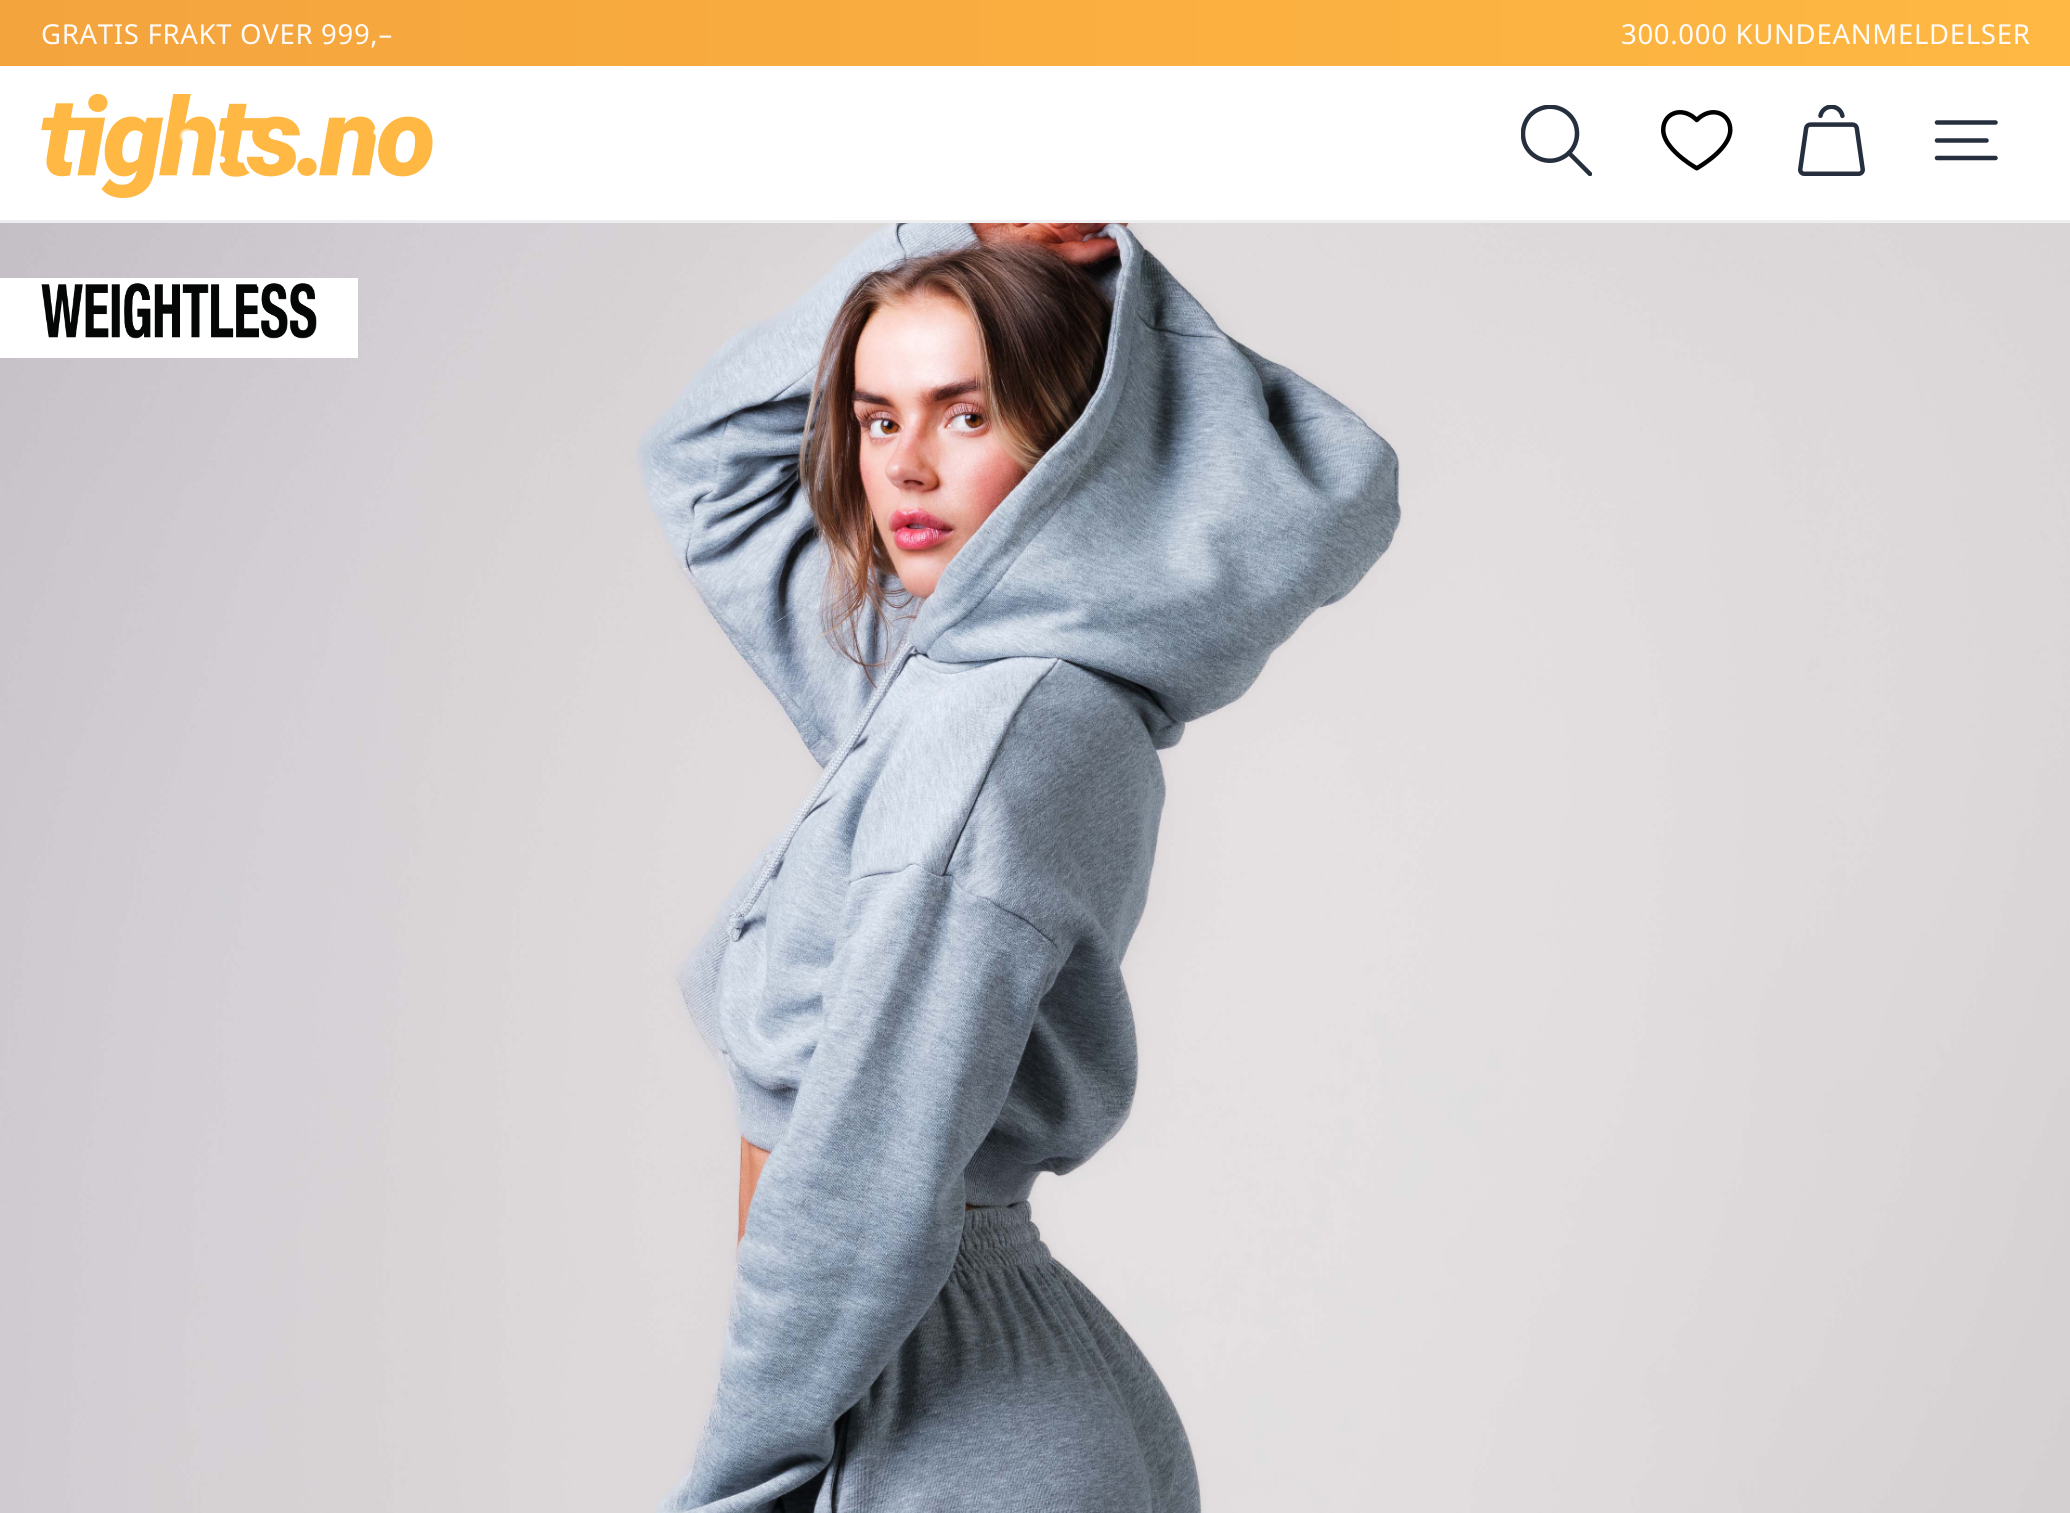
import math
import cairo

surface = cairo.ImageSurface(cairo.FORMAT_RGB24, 2070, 1513)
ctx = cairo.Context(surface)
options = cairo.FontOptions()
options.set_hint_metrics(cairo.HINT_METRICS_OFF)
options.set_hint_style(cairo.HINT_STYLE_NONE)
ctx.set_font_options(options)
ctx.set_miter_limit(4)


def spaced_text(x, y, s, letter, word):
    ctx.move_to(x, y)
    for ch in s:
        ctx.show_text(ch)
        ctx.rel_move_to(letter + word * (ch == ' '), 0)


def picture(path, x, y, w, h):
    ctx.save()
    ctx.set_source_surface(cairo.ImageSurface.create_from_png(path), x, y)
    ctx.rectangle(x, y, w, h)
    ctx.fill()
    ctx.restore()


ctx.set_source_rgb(1, 1, 1)
ctx.paint()
ctx.set_source_rgb(0.933, 0.933, 0.941)
ctx.rectangle(0, 220, 2070, 3)
ctx.fill()
picture("img1.png", 41, 94, 392, 104)
ctx.new_path()
ctx.move_to(221.8, 159.6)
ctx.line_to(472.2, 83)
ctx.set_source_rgb(1, 1, 1)
ctx.set_line_width(6.6)
ctx.set_line_cap(cairo.LINE_CAP_ROUND)
ctx.set_dash([0, 261.25])
ctx.stroke()
picture("img4.png", 0, 223, 2070, 1290)
ctx.rectangle(0, 278, 358, 80)
ctx.fill()
picture("img5.png", 41, 283, 276, 56)
ctx.new_path()
ctx.move_to(260, 284.5)
ctx.line_to(510.4, 207.9)
ctx.stroke()
gradient = cairo.LinearGradient(0, 33, 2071, 33)
gradient.add_color_stop_rgba(0, 0.957, 0.643, 0.239, 1)
gradient.add_color_stop_rgba(0.12, 0.961, 0.651, 0.243, 1)
gradient.add_color_stop_rgba(0.25, 0.969, 0.663, 0.243, 1)
gradient.add_color_stop_rgba(0.38, 0.973, 0.671, 0.247, 1)
gradient.add_color_stop_rgba(0.5, 0.98, 0.682, 0.251, 1)
gradient.add_color_stop_rgba(0.75, 0.988, 0.702, 0.255, 1)
gradient.add_color_stop_rgba(1, 1, 0.722, 0.263, 1)
ctx.set_source(gradient)
ctx.rectangle(0, 0, 2070, 66)
ctx.fill()
gradient = cairo.RadialGradient(377, 132, 0, 377, 132, 225)
gradient.add_color_stop_rgba(0.01, 1, 1, 1, 1)
gradient.add_color_stop_rgba(0.02, 1, 1, 1, 0)
ctx.set_source(gradient)
ctx.new_path()
ctx.move_to(455, 245)
ctx.line_to(341, 280)
ctx.line_to(264, 31)
ctx.line_to(514, -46)
ctx.line_to(591, 204)
ctx.close_path()
ctx.fill()
gradient = cairo.RadialGradient(187, 136, 0, 187, 136, 409)
gradient.add_color_stop_rgba(0.01, 1, 1, 1, 1)
gradient.add_color_stop_rgba(0.02, 1, 1, 1, 0)
ctx.set_source(gradient)
ctx.new_path()
ctx.move_to(14, 107)
ctx.line_to(514, -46)
ctx.line_to(591, 204)
ctx.line_to(91, 357)
ctx.close_path()
ctx.fill()
ctx.save()
ctx.rectangle(1521, 105, 71, 71)
ctx.clip()
ctx.new_path()
ctx.move_to(1539.5, 109)
ctx.curve_to(1553, 103, 1569, 109.5, 1575, 123)
ctx.curve_to(1580.5, 137, 1574.5, 152.5, 1560.5, 158.5)
ctx.curve_to(1547, 164.5, 1531, 158, 1525, 144.5)
ctx.curve_to(1519.5, 130.5, 1525.5, 114.5, 1539.5, 109)
ctx.close_path()
ctx.set_source_rgb(0.149, 0.184, 0.243)
ctx.set_line_width(4.5)
ctx.set_line_join(cairo.LINE_JOIN_ROUND)
ctx.set_dash([])
ctx.stroke()
ctx.new_path()
ctx.move_to(1569, 153)
ctx.line_to(1590, 174)
ctx.stroke()
ctx.restore()
picture("img2.png", 1661, 110, 72, 61)
picture("img3.png", 1798, 105, 67, 71)
ctx.new_path()
ctx.move_to(1937, 158)
ctx.line_to(1995.5, 158)
ctx.set_source_rgb(0.149, 0.184, 0.243)
ctx.set_line_width(4.5)
ctx.set_line_join(cairo.LINE_JOIN_ROUND)
ctx.set_dash([])
ctx.stroke()
ctx.new_path()
ctx.move_to(1937, 140.5)
ctx.line_to(1986.5, 140.5)
ctx.stroke()
ctx.new_path()
ctx.move_to(1937, 122.5)
ctx.line_to(1995.5, 122.5)
ctx.stroke()
ctx.select_font_face("Noto Sans")
ctx.set_font_size(27.5)
ctx.set_source_rgb(1, 0.984, 0.969)
spaced_text(41, 44, "GRATIS FRAKT OVER 999,–", 0.7, 0)
spaced_text(1621, 44, "300.000 KUNDEANMELDELSER", 0.7, 0)
surface.write_to_png("page.png")
